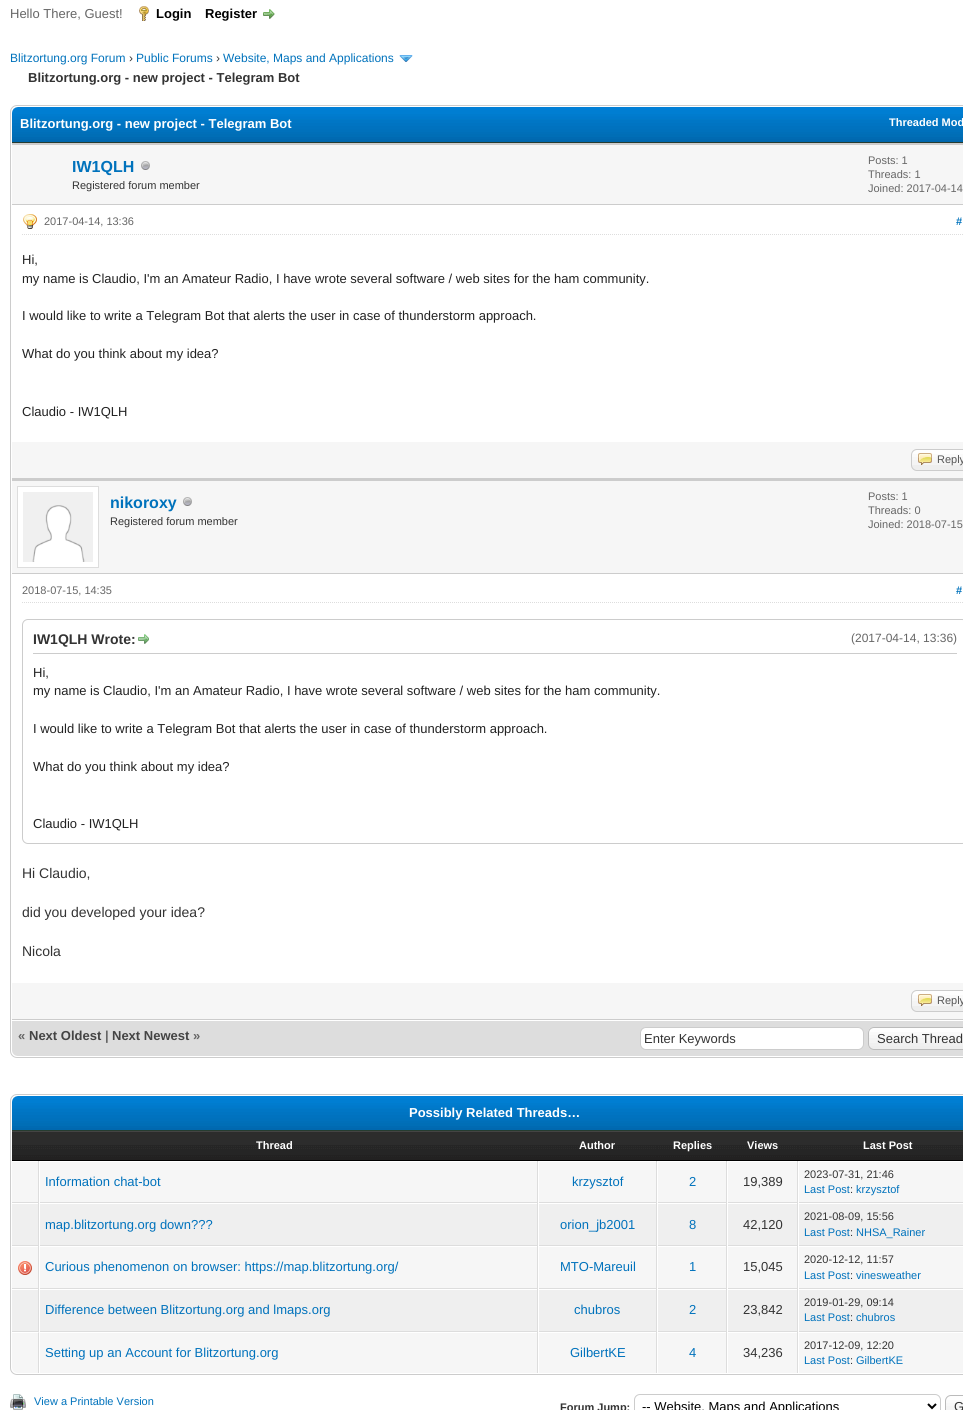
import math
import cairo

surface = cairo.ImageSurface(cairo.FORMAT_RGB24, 963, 1410)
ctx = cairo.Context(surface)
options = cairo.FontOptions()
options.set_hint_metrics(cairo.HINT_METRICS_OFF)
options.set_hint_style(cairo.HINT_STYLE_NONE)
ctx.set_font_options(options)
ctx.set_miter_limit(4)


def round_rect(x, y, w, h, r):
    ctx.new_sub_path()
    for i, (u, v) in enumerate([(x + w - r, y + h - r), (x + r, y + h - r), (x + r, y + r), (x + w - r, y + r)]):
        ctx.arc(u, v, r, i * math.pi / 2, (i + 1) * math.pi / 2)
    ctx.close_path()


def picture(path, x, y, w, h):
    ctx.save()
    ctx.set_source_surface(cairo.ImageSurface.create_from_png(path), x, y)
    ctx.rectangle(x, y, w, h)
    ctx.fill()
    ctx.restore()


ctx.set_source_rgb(1, 1, 1)
ctx.paint()
ctx.select_font_face("Liberation Sans")
ctx.set_font_size(13)
ctx.set_source_rgb(0.4, 0.4, 0.4)
ctx.move_to(10, 18)
ctx.show_text("Hello There, Guest!")
picture("img1.png", 139, 6, 10, 15)
ctx.select_font_face("Liberation Sans", cairo.FONT_SLANT_NORMAL, cairo.FONT_WEIGHT_BOLD)
ctx.set_source_rgb(0, 0, 0)
ctx.move_to(156, 18)
ctx.show_text("Login")
ctx.move_to(205, 18)
ctx.show_text("Register")
picture("img2.png", 263, 9, 12, 10)
ctx.select_font_face("Liberation Sans")
ctx.set_font_size(12)
ctx.set_source_rgb(0, 0.447, 0.737)
ctx.move_to(10, 62)
ctx.show_text("Blitzortung.org Forum")
ctx.set_source_rgb(0.2, 0.2, 0.2)
ctx.move_to(129, 62)
ctx.show_text("›")
ctx.set_source_rgb(0, 0.447, 0.737)
ctx.move_to(136, 62)
ctx.show_text("Public Forums")
ctx.set_source_rgb(0.2, 0.2, 0.2)
ctx.move_to(216, 62)
ctx.show_text("›")
ctx.set_source_rgb(0, 0.447, 0.737)
ctx.move_to(223, 62)
ctx.show_text("Website, Maps and Applications")
picture("img3.png", 399, 55, 14, 7)
ctx.select_font_face("Liberation Sans", cairo.FONT_SLANT_NORMAL, cairo.FONT_WEIGHT_BOLD)
ctx.set_font_size(13)
ctx.set_source_rgb(0.2, 0.2, 0.2)
ctx.move_to(28, 82)
ctx.show_text("Blitzortung.org - new project - Telegram Bot")
round_rect(10.5, 105.5, 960, 952, 6.5)
ctx.set_source_rgb(0.8, 0.8, 0.8)
ctx.set_line_width(1)
ctx.stroke()
picture("img4.png", 12, 107, 951, 35)
ctx.set_source_rgb(0.149, 0.235, 0.188)
ctx.rectangle(12, 142, 951, 1)
ctx.fill()
ctx.set_source_rgb(1, 1, 1)
ctx.move_to(20, 128)
ctx.show_text("Blitzortung.org - new project - Telegram Bot")
ctx.set_font_size(11)
ctx.move_to(889, 126)
ctx.show_text("Threaded Mod")
ctx.set_source_rgb(0.961, 0.961, 0.961)
ctx.rectangle(12, 145, 951, 59)
ctx.fill()
ctx.set_source_rgb(0.8, 0.8, 0.8)
ctx.rectangle(12, 143, 951, 2)
ctx.fill()
ctx.rectangle(12, 204, 951, 1)
ctx.fill()
ctx.set_font_size(16)
ctx.set_source_rgb(0, 0.447, 0.737)
ctx.move_to(72, 172)
ctx.show_text("IW1QLH")
picture("img5.png", 141, 161, 9, 9)
ctx.select_font_face("Liberation Sans")
ctx.set_font_size(11)
ctx.set_source_rgb(0.2, 0.2, 0.2)
ctx.move_to(72, 189)
ctx.show_text("Registered forum member")
ctx.set_source_rgb(0.4, 0.4, 0.4)
ctx.move_to(868, 164)
ctx.show_text("Posts: 1")
ctx.move_to(868, 178)
ctx.show_text("Threads: 1")
ctx.move_to(868, 192)
ctx.show_text("Joined: 2017-04-14")
ctx.new_path()
ctx.move_to(22, 234.5)
ctx.line_to(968, 234.5)
ctx.set_source_rgb(0.867, 0.867, 0.867)
ctx.set_dash([1, 1])
ctx.stroke()
picture("img6.png", 23, 214, 14, 15)
ctx.set_source_rgb(0.4, 0.4, 0.4)
ctx.move_to(44, 225)
ctx.show_text("2017-04-14, 13:36")
ctx.select_font_face("Liberation Sans", cairo.FONT_SLANT_NORMAL, cairo.FONT_WEIGHT_BOLD)
ctx.set_source_rgb(0, 0.447, 0.737)
ctx.move_to(956, 225)
ctx.show_text("#")
ctx.select_font_face("Liberation Sans")
ctx.set_font_size(13)
ctx.set_source_rgb(0.133, 0.133, 0.133)
ctx.move_to(22, 264)
ctx.show_text("Hi,")
ctx.move_to(22, 283)
ctx.show_text("my name is Claudio, I'm an Amateur Radio, I have wrote several software / web sites for the ham community.")
ctx.move_to(22, 320)
ctx.show_text("I would like to write a Telegram Bot that alerts the user in case of thunderstorm approach.")
ctx.move_to(22, 358)
ctx.show_text("What do you think about my idea?")
ctx.move_to(22, 416)
ctx.show_text("Claudio - IW1QLH")
ctx.set_source_rgb(0.961, 0.961, 0.961)
ctx.rectangle(12, 442, 951, 36)
ctx.fill()
ctx.set_source_rgb(0.8, 0.8, 0.8)
ctx.rectangle(12, 478, 951, 3)
ctx.fill()
ctx.set_source_rgb(0.933, 0.933, 0.933)
round_rect(911, 449, 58, 22, 6)
ctx.fill()
picture("img7.png", 911, 450, 52, 15)
round_rect(911.5, 449.5, 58, 21, 5.5)
ctx.set_source_rgb(0.8, 0.8, 0.8)
ctx.set_dash([])
ctx.stroke()
picture("img8.png", 918, 453, 14, 12)
ctx.set_font_size(11)
ctx.set_source_rgb(0.333, 0.333, 0.333)
ctx.move_to(937, 463)
ctx.show_text("Reply")
ctx.set_source_rgb(0.961, 0.961, 0.961)
ctx.rectangle(12, 481, 951, 92)
ctx.fill()
ctx.set_source_rgb(0.8, 0.8, 0.8)
ctx.rectangle(12, 573, 951, 1)
ctx.fill()
ctx.set_source_rgb(1, 1, 1)
ctx.rectangle(17.5, 486.5, 81, 81)
ctx.fill_preserve()
ctx.set_source_rgb(0.867, 0.867, 0.867)
ctx.stroke()
picture("img9.png", 23, 492, 70, 70)
ctx.select_font_face("Liberation Sans", cairo.FONT_SLANT_NORMAL, cairo.FONT_WEIGHT_BOLD)
ctx.set_font_size(16)
ctx.set_source_rgb(0, 0.447, 0.737)
ctx.move_to(110, 508)
ctx.show_text("nikoroxy")
picture("img5.png", 183, 497, 9, 9)
ctx.select_font_face("Liberation Sans")
ctx.set_font_size(11)
ctx.set_source_rgb(0.2, 0.2, 0.2)
ctx.move_to(110, 525)
ctx.show_text("Registered forum member")
ctx.set_source_rgb(0.4, 0.4, 0.4)
ctx.move_to(868, 500)
ctx.show_text("Posts: 1")
ctx.move_to(868, 514)
ctx.show_text("Threads: 0")
ctx.move_to(868, 528)
ctx.show_text("Joined: 2018-07-15")
ctx.new_path()
ctx.move_to(22, 602.5)
ctx.line_to(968, 602.5)
ctx.set_source_rgb(0.867, 0.867, 0.867)
ctx.set_dash([1, 1])
ctx.stroke()
ctx.set_source_rgb(0.4, 0.4, 0.4)
ctx.move_to(22, 594)
ctx.show_text("2018-07-15, 14:35")
ctx.select_font_face("Liberation Sans", cairo.FONT_SLANT_NORMAL, cairo.FONT_WEIGHT_BOLD)
ctx.set_source_rgb(0, 0.447, 0.737)
ctx.move_to(956, 594)
ctx.show_text("#")
round_rect(22.5, 619.5, 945, 224, 5.5)
ctx.set_source_rgb(0.8, 0.8, 0.8)
ctx.set_dash([])
ctx.stroke()
ctx.rectangle(33, 653, 924, 1)
ctx.fill()
ctx.set_font_size(14)
ctx.set_source_rgb(0.2, 0.2, 0.2)
ctx.move_to(33, 644)
ctx.show_text("IW1QLH Wrote:")
picture("img10.png", 138, 634, 11, 10)
ctx.select_font_face("Liberation Sans")
ctx.set_font_size(12)
ctx.set_source_rgb(0.4, 0.4, 0.4)
ctx.move_to(851, 642)
ctx.show_text("(2017-04-14, 13:36)")
ctx.set_font_size(13)
ctx.set_source_rgb(0.133, 0.133, 0.133)
ctx.move_to(33, 677)
ctx.show_text("Hi,")
ctx.move_to(33, 695)
ctx.show_text("my name is Claudio, I'm an Amateur Radio, I have wrote several software / web sites for the ham community.")
ctx.move_to(33, 733)
ctx.show_text("I would like to write a Telegram Bot that alerts the user in case of thunderstorm approach.")
ctx.move_to(33, 771)
ctx.show_text("What do you think about my idea?")
ctx.move_to(33, 828)
ctx.show_text("Claudio - IW1QLH")
ctx.set_font_size(14)
ctx.set_source_rgb(0.2, 0.2, 0.2)
ctx.move_to(22, 878)
ctx.show_text("Hi Claudio,")
ctx.move_to(22, 917)
ctx.show_text("did you developed your idea?")
ctx.move_to(22, 956)
ctx.show_text("Nicola")
ctx.set_source_rgb(0.961, 0.961, 0.961)
ctx.rectangle(12, 983, 951, 36)
ctx.fill()
ctx.set_source_rgb(0.8, 0.8, 0.8)
ctx.rectangle(12, 1019, 951, 1)
ctx.fill()
ctx.set_source_rgb(0.933, 0.933, 0.933)
round_rect(911, 990, 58, 22, 6)
ctx.fill()
picture("img7.png", 911, 991, 52, 15)
round_rect(911.5, 990.5, 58, 21, 5.5)
ctx.set_source_rgb(0.8, 0.8, 0.8)
ctx.stroke()
picture("img8.png", 918, 994, 14, 12)
ctx.set_font_size(11)
ctx.set_source_rgb(0.333, 0.333, 0.333)
ctx.move_to(937, 1004)
ctx.show_text("Reply")
ctx.set_source_rgb(0.867, 0.867, 0.867)
ctx.new_path()
ctx.move_to(12, 1020)
ctx.line_to(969, 1020)
ctx.line_to(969, 1050)
ctx.curve_to(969, 1053.5, 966.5, 1056, 963, 1056)
ctx.line_to(18, 1056)
ctx.curve_to(14.5, 1056, 12, 1053.5, 12, 1050)
ctx.close_path()
ctx.fill()
ctx.set_source_rgb(1, 1, 1)
ctx.rectangle(12, 1020, 951, 1)
ctx.fill()
ctx.select_font_face("Liberation Sans", cairo.FONT_SLANT_NORMAL, cairo.FONT_WEIGHT_BOLD)
ctx.set_font_size(13)
ctx.set_source_rgb(0.4, 0.4, 0.4)
ctx.move_to(18, 1040)
ctx.show_text("«")
ctx.set_source_rgb(0.267, 0.267, 0.267)
ctx.move_to(29, 1040)
ctx.show_text("Next Oldest")
ctx.set_source_rgb(0.4, 0.4, 0.4)
ctx.move_to(105, 1040)
ctx.show_text("|")
ctx.set_source_rgb(0.267, 0.267, 0.267)
ctx.move_to(112, 1040)
ctx.show_text("Next Newest")
ctx.set_source_rgb(0.4, 0.4, 0.4)
ctx.move_to(193, 1040)
ctx.show_text("»")
ctx.set_source_rgb(1, 1, 1)
round_rect(640.5, 1027.5, 223, 22, 5.5)
ctx.fill_preserve()
ctx.set_source_rgb(0.8, 0.8, 0.8)
ctx.stroke()
ctx.select_font_face("Liberation Sans")
ctx.set_source_rgb(0.2, 0.2, 0.2)
ctx.move_to(644, 1043)
ctx.show_text("Enter Keywords")
ctx.set_source_rgb(0.933, 0.933, 0.933)
round_rect(868, 1027, 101, 23, 6)
ctx.fill()
picture("img11.png", 868, 1028, 95, 18)
round_rect(868.5, 1027.5, 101, 22, 5.5)
ctx.set_source_rgb(0.733, 0.733, 0.733)
ctx.stroke()
ctx.set_source_rgb(0.2, 0.2, 0.2)
ctx.move_to(877, 1043)
ctx.show_text("Search Thread")
round_rect(10.5, 1094.5, 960, 280, 6.5)
ctx.set_source_rgb(0.8, 0.8, 0.8)
ctx.stroke()
picture("img12.png", 12, 1096, 951, 34)
ctx.set_source_rgb(0.149, 0.235, 0.188)
ctx.rectangle(12, 1130, 951, 1)
ctx.fill()
ctx.select_font_face("Liberation Sans", cairo.FONT_SLANT_NORMAL, cairo.FONT_WEIGHT_BOLD)
ctx.set_source_rgb(1, 1, 1)
ctx.move_to(409, 1117)
ctx.show_text("Possibly Related Threads…")
picture("img13.png", 12, 1132, 526, 28)
ctx.set_source_rgb(0.267, 0.267, 0.267)
ctx.rectangle(12, 1131, 951, 1)
ctx.fill()
ctx.set_source_rgb(0, 0, 0)
ctx.rectangle(12, 1160, 951, 1)
ctx.fill()
ctx.set_font_size(11)
ctx.set_source_rgb(1, 1, 1)
ctx.move_to(256, 1149)
ctx.show_text("Thread")
picture("img14.png", 538, 1132, 119, 28)
ctx.move_to(579, 1149)
ctx.show_text("Author")
picture("img15.png", 657, 1132, 70, 28)
ctx.move_to(673, 1149)
ctx.show_text("Replies")
picture("img16.png", 727, 1132, 71, 28)
ctx.move_to(747, 1149)
ctx.show_text("Views")
picture("img17.png", 798, 1132, 165, 28)
ctx.move_to(863, 1149)
ctx.show_text("Last Post")
ctx.set_source_rgb(0.961, 0.961, 0.961)
ctx.rectangle(12, 1162, 26, 40)
ctx.fill()
ctx.set_source_rgb(0.867, 0.867, 0.867)
ctx.rectangle(38, 1161, 1, 171)
ctx.fill()
ctx.rectangle(12, 1202, 27, 1)
ctx.fill()
ctx.set_source_rgb(0.961, 0.961, 0.961)
ctx.rectangle(40, 1162, 497, 40)
ctx.fill()
ctx.set_source_rgb(0.867, 0.867, 0.867)
ctx.rectangle(537, 1161, 1, 212)
ctx.fill()
ctx.rectangle(39, 1202, 499, 1)
ctx.fill()
ctx.set_source_rgb(1, 1, 1)
ctx.rectangle(39, 1202, 1, 1)
ctx.fill()
ctx.select_font_face("Liberation Sans")
ctx.set_font_size(13)
ctx.set_source_rgb(0, 0.447, 0.737)
ctx.move_to(45, 1186)
ctx.show_text("Information chat-bot")
ctx.set_source_rgb(0.961, 0.961, 0.961)
ctx.rectangle(539, 1162, 117, 40)
ctx.fill()
ctx.set_source_rgb(0.867, 0.867, 0.867)
ctx.rectangle(656, 1161, 1, 212)
ctx.fill()
ctx.rectangle(538, 1202, 119, 1)
ctx.fill()
ctx.set_source_rgb(1, 1, 1)
ctx.rectangle(538, 1202, 1, 1)
ctx.fill()
ctx.set_source_rgb(0, 0.447, 0.737)
ctx.move_to(572, 1186)
ctx.show_text("krzysztof")
ctx.set_source_rgb(0.961, 0.961, 0.961)
ctx.rectangle(658, 1162, 68, 40)
ctx.fill()
ctx.set_source_rgb(0.867, 0.867, 0.867)
ctx.rectangle(726, 1161, 1, 212)
ctx.fill()
ctx.rectangle(657, 1202, 70, 1)
ctx.fill()
ctx.set_source_rgb(1, 1, 1)
ctx.rectangle(657, 1202, 1, 1)
ctx.fill()
ctx.set_source_rgb(0, 0.447, 0.737)
ctx.move_to(689, 1186)
ctx.show_text("2")
ctx.set_source_rgb(0.961, 0.961, 0.961)
ctx.rectangle(728, 1162, 69, 40)
ctx.fill()
ctx.set_source_rgb(0.867, 0.867, 0.867)
ctx.rectangle(797, 1161, 1, 212)
ctx.fill()
ctx.rectangle(727, 1202, 236, 1)
ctx.fill()
ctx.set_source_rgb(1, 1, 1)
ctx.rectangle(727, 1202, 1, 1)
ctx.fill()
ctx.set_source_rgb(0.2, 0.2, 0.2)
ctx.move_to(743, 1186)
ctx.show_text("19,389")
ctx.set_source_rgb(0.961, 0.961, 0.961)
ctx.rectangle(799, 1162, 164, 40)
ctx.fill()
ctx.set_source_rgb(1, 1, 1)
ctx.rectangle(798, 1202, 1, 1)
ctx.fill()
ctx.set_font_size(11)
ctx.set_source_rgb(0.2, 0.2, 0.2)
ctx.move_to(804, 1178)
ctx.show_text("2023-07-31, 21:46")
ctx.set_source_rgb(0, 0.447, 0.737)
ctx.move_to(804, 1193)
ctx.show_text("Last Post")
ctx.set_source_rgb(0.2, 0.2, 0.2)
ctx.move_to(850, 1193)
ctx.show_text(":")
ctx.set_source_rgb(0, 0.447, 0.737)
ctx.move_to(856, 1193)
ctx.show_text("krzysztof")
ctx.set_source_rgb(0.937, 0.937, 0.937)
ctx.rectangle(12, 1204, 26, 41)
ctx.fill()
ctx.set_source_rgb(0.867, 0.867, 0.867)
ctx.rectangle(12, 1245, 951, 1)
ctx.fill()
ctx.set_source_rgb(0.937, 0.937, 0.937)
ctx.rectangle(40, 1204, 497, 41)
ctx.fill()
ctx.set_source_rgb(1, 1, 1)
ctx.rectangle(39, 1245, 1, 1)
ctx.fill()
ctx.set_font_size(13)
ctx.set_source_rgb(0, 0.447, 0.737)
ctx.move_to(45, 1229)
ctx.show_text("map.blitzortung.org down???")
ctx.set_source_rgb(0.937, 0.937, 0.937)
ctx.rectangle(539, 1204, 117, 41)
ctx.fill()
ctx.set_source_rgb(1, 1, 1)
ctx.rectangle(538, 1245, 1, 1)
ctx.fill()
ctx.set_source_rgb(0, 0.447, 0.737)
ctx.move_to(560, 1229)
ctx.show_text("orion_jb2001")
ctx.set_source_rgb(0.937, 0.937, 0.937)
ctx.rectangle(658, 1204, 68, 41)
ctx.fill()
ctx.set_source_rgb(1, 1, 1)
ctx.rectangle(657, 1245, 1, 1)
ctx.fill()
ctx.set_source_rgb(0, 0.447, 0.737)
ctx.move_to(689, 1229)
ctx.show_text("8")
ctx.set_source_rgb(0.937, 0.937, 0.937)
ctx.rectangle(728, 1204, 69, 41)
ctx.fill()
ctx.set_source_rgb(1, 1, 1)
ctx.rectangle(727, 1245, 1, 1)
ctx.fill()
ctx.set_source_rgb(0.2, 0.2, 0.2)
ctx.move_to(743, 1229)
ctx.show_text("42,120")
ctx.set_source_rgb(0.937, 0.937, 0.937)
ctx.rectangle(799, 1204, 164, 41)
ctx.fill()
ctx.set_source_rgb(1, 1, 1)
ctx.rectangle(798, 1245, 1, 1)
ctx.fill()
ctx.set_font_size(11)
ctx.set_source_rgb(0.2, 0.2, 0.2)
ctx.move_to(804, 1220)
ctx.show_text("2021-08-09, 15:56")
ctx.set_source_rgb(0, 0.447, 0.737)
ctx.move_to(804, 1236)
ctx.show_text("Last Post")
ctx.set_source_rgb(0.2, 0.2, 0.2)
ctx.move_to(850, 1236)
ctx.show_text(":")
ctx.set_source_rgb(0, 0.447, 0.737)
ctx.move_to(856, 1236)
ctx.show_text("NHSA_Rainer")
ctx.set_source_rgb(0.961, 0.961, 0.961)
ctx.rectangle(12, 1247, 26, 41)
ctx.fill()
ctx.set_source_rgb(0.867, 0.867, 0.867)
ctx.rectangle(12, 1288, 951, 1)
ctx.fill()
picture("img18.png", 18, 1261, 14, 14)
ctx.set_source_rgb(0.961, 0.961, 0.961)
ctx.rectangle(40, 1247, 497, 41)
ctx.fill()
ctx.set_source_rgb(1, 1, 1)
ctx.rectangle(39, 1288, 1, 1)
ctx.fill()
ctx.set_font_size(13)
ctx.set_source_rgb(0, 0.447, 0.737)
ctx.move_to(45, 1271)
ctx.show_text("Curious phenomenon on browser: https://map.blitzortung.org/")
ctx.set_source_rgb(0.961, 0.961, 0.961)
ctx.rectangle(539, 1247, 117, 41)
ctx.fill()
ctx.set_source_rgb(1, 1, 1)
ctx.rectangle(538, 1288, 1, 1)
ctx.fill()
ctx.set_source_rgb(0, 0.447, 0.737)
ctx.move_to(560, 1271)
ctx.show_text("MTO-Mareuil")
ctx.set_source_rgb(0.961, 0.961, 0.961)
ctx.rectangle(658, 1247, 68, 41)
ctx.fill()
ctx.set_source_rgb(1, 1, 1)
ctx.rectangle(657, 1288, 1, 1)
ctx.fill()
ctx.set_source_rgb(0, 0.447, 0.737)
ctx.move_to(689, 1271)
ctx.show_text("1")
ctx.set_source_rgb(0.961, 0.961, 0.961)
ctx.rectangle(728, 1247, 69, 41)
ctx.fill()
ctx.set_source_rgb(1, 1, 1)
ctx.rectangle(727, 1288, 1, 1)
ctx.fill()
ctx.set_source_rgb(0.2, 0.2, 0.2)
ctx.move_to(743, 1271)
ctx.show_text("15,045")
ctx.set_source_rgb(0.961, 0.961, 0.961)
ctx.rectangle(799, 1247, 164, 41)
ctx.fill()
ctx.set_source_rgb(1, 1, 1)
ctx.rectangle(798, 1288, 1, 1)
ctx.fill()
ctx.set_font_size(11)
ctx.set_source_rgb(0.2, 0.2, 0.2)
ctx.move_to(804, 1263)
ctx.show_text("2020-12-12, 11:57")
ctx.set_source_rgb(0, 0.447, 0.737)
ctx.move_to(804, 1279)
ctx.show_text("Last Post")
ctx.set_source_rgb(0.2, 0.2, 0.2)
ctx.move_to(850, 1279)
ctx.show_text(":")
ctx.set_source_rgb(0, 0.447, 0.737)
ctx.move_to(856, 1279)
ctx.show_text("vinesweather")
ctx.set_source_rgb(0.937, 0.937, 0.937)
ctx.rectangle(12, 1290, 26, 41)
ctx.fill()
ctx.set_source_rgb(0.867, 0.867, 0.867)
ctx.rectangle(12, 1331, 951, 1)
ctx.fill()
ctx.set_source_rgb(0.937, 0.937, 0.937)
ctx.rectangle(40, 1290, 497, 41)
ctx.fill()
ctx.set_source_rgb(1, 1, 1)
ctx.rectangle(39, 1331, 1, 1)
ctx.fill()
ctx.set_font_size(13)
ctx.set_source_rgb(0, 0.447, 0.737)
ctx.move_to(45, 1314)
ctx.show_text("Difference between Blitzortung.org and lmaps.org")
ctx.set_source_rgb(0.937, 0.937, 0.937)
ctx.rectangle(539, 1290, 117, 41)
ctx.fill()
ctx.set_source_rgb(1, 1, 1)
ctx.rectangle(538, 1331, 1, 1)
ctx.fill()
ctx.set_source_rgb(0, 0.447, 0.737)
ctx.move_to(574, 1314)
ctx.show_text("chubros")
ctx.set_source_rgb(0.937, 0.937, 0.937)
ctx.rectangle(658, 1290, 68, 41)
ctx.fill()
ctx.set_source_rgb(1, 1, 1)
ctx.rectangle(657, 1331, 1, 1)
ctx.fill()
ctx.set_source_rgb(0, 0.447, 0.737)
ctx.move_to(689, 1314)
ctx.show_text("2")
ctx.set_source_rgb(0.937, 0.937, 0.937)
ctx.rectangle(728, 1290, 69, 41)
ctx.fill()
ctx.set_source_rgb(1, 1, 1)
ctx.rectangle(727, 1331, 1, 1)
ctx.fill()
ctx.set_source_rgb(0.2, 0.2, 0.2)
ctx.move_to(743, 1314)
ctx.show_text("23,842")
ctx.set_source_rgb(0.937, 0.937, 0.937)
ctx.rectangle(799, 1290, 164, 41)
ctx.fill()
ctx.set_source_rgb(1, 1, 1)
ctx.rectangle(798, 1331, 1, 1)
ctx.fill()
ctx.set_font_size(11)
ctx.set_source_rgb(0.2, 0.2, 0.2)
ctx.move_to(804, 1306)
ctx.show_text("2019-01-29, 09:14")
ctx.set_source_rgb(0, 0.447, 0.737)
ctx.move_to(804, 1321)
ctx.show_text("Last Post")
ctx.set_source_rgb(0.2, 0.2, 0.2)
ctx.move_to(850, 1321)
ctx.show_text(":")
ctx.set_source_rgb(0, 0.447, 0.737)
ctx.move_to(856, 1321)
ctx.show_text("chubros")
ctx.set_source_rgb(0.961, 0.961, 0.961)
ctx.new_path()
ctx.move_to(12, 1332)
ctx.line_to(39, 1332)
ctx.line_to(39, 1373)
ctx.line_to(18, 1373)
ctx.curve_to(14.5, 1373, 12, 1370.5, 12, 1367)
ctx.close_path()
ctx.fill()
ctx.set_source_rgb(1, 1, 1)
ctx.new_path()
ctx.move_to(12, 1332)
ctx.line_to(12, 1333)
ctx.line_to(38, 1333)
ctx.line_to(39, 1332)
ctx.close_path()
ctx.fill()
ctx.set_source_rgb(0.867, 0.867, 0.867)
ctx.new_path()
ctx.move_to(39, 1332)
ctx.line_to(38, 1333)
ctx.line_to(38, 1373)
ctx.line_to(39, 1373)
ctx.close_path()
ctx.fill()
ctx.set_source_rgb(0.961, 0.961, 0.961)
ctx.rectangle(40, 1333, 497, 40)
ctx.fill()
ctx.set_font_size(13)
ctx.set_source_rgb(0, 0.447, 0.737)
ctx.move_to(45, 1357)
ctx.show_text("Setting up an Account for Blitzortung.org")
ctx.set_source_rgb(0.961, 0.961, 0.961)
ctx.rectangle(539, 1333, 117, 40)
ctx.fill()
ctx.set_source_rgb(0, 0.447, 0.737)
ctx.move_to(570, 1357)
ctx.show_text("GilbertKE")
ctx.set_source_rgb(0.961, 0.961, 0.961)
ctx.rectangle(658, 1333, 68, 40)
ctx.fill()
ctx.set_source_rgb(0, 0.447, 0.737)
ctx.move_to(689, 1357)
ctx.show_text("4")
ctx.set_source_rgb(0.961, 0.961, 0.961)
ctx.rectangle(728, 1333, 69, 40)
ctx.fill()
ctx.set_source_rgb(0.2, 0.2, 0.2)
ctx.move_to(743, 1357)
ctx.show_text("34,236")
ctx.set_source_rgb(0.961, 0.961, 0.961)
ctx.rectangle(799, 1333, 164, 40)
ctx.fill()
ctx.set_font_size(11)
ctx.set_source_rgb(0.2, 0.2, 0.2)
ctx.move_to(804, 1349)
ctx.show_text("2017-12-09, 12:20")
ctx.set_source_rgb(0, 0.447, 0.737)
ctx.move_to(804, 1364)
ctx.show_text("Last Post")
ctx.set_source_rgb(0.2, 0.2, 0.2)
ctx.move_to(850, 1364)
ctx.show_text(":")
ctx.set_source_rgb(0, 0.447, 0.737)
ctx.move_to(856, 1364)
ctx.show_text("GilbertKE")
picture("img19.png", 10, 1394, 16, 16)
ctx.move_to(34, 1405)
ctx.show_text("View a Printable Version")
ctx.select_font_face("Liberation Sans", cairo.FONT_SLANT_NORMAL, cairo.FONT_WEIGHT_BOLD)
ctx.set_source_rgb(0.2, 0.2, 0.2)
ctx.move_to(560, 1411)
ctx.show_text("Forum Jump:")
round_rect(634.5, 1394.5, 306, 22, 5.5)
ctx.set_source_rgb(0.8, 0.8, 0.8)
ctx.stroke()
ctx.new_path()
ctx.move_to(928, 1404)
ctx.line_to(932, 1408)
ctx.line_to(936, 1404)
ctx.set_source_rgb(0, 0, 0)
ctx.set_line_width(2)
ctx.stroke()
ctx.select_font_face("Liberation Sans")
ctx.set_font_size(13)
ctx.move_to(642, 1411)
ctx.show_text("-- Website, Maps and Applications")
picture("img20.png", 945, 1396, 18, 14)
round_rect(945.5, 1395.5, 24, 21, 5.5)
ctx.set_source_rgb(0.733, 0.733, 0.733)
ctx.set_line_width(1)
ctx.stroke()
ctx.set_source_rgb(0.2, 0.2, 0.2)
ctx.move_to(954, 1411)
ctx.show_text("G")
surface.write_to_png("page.png")
